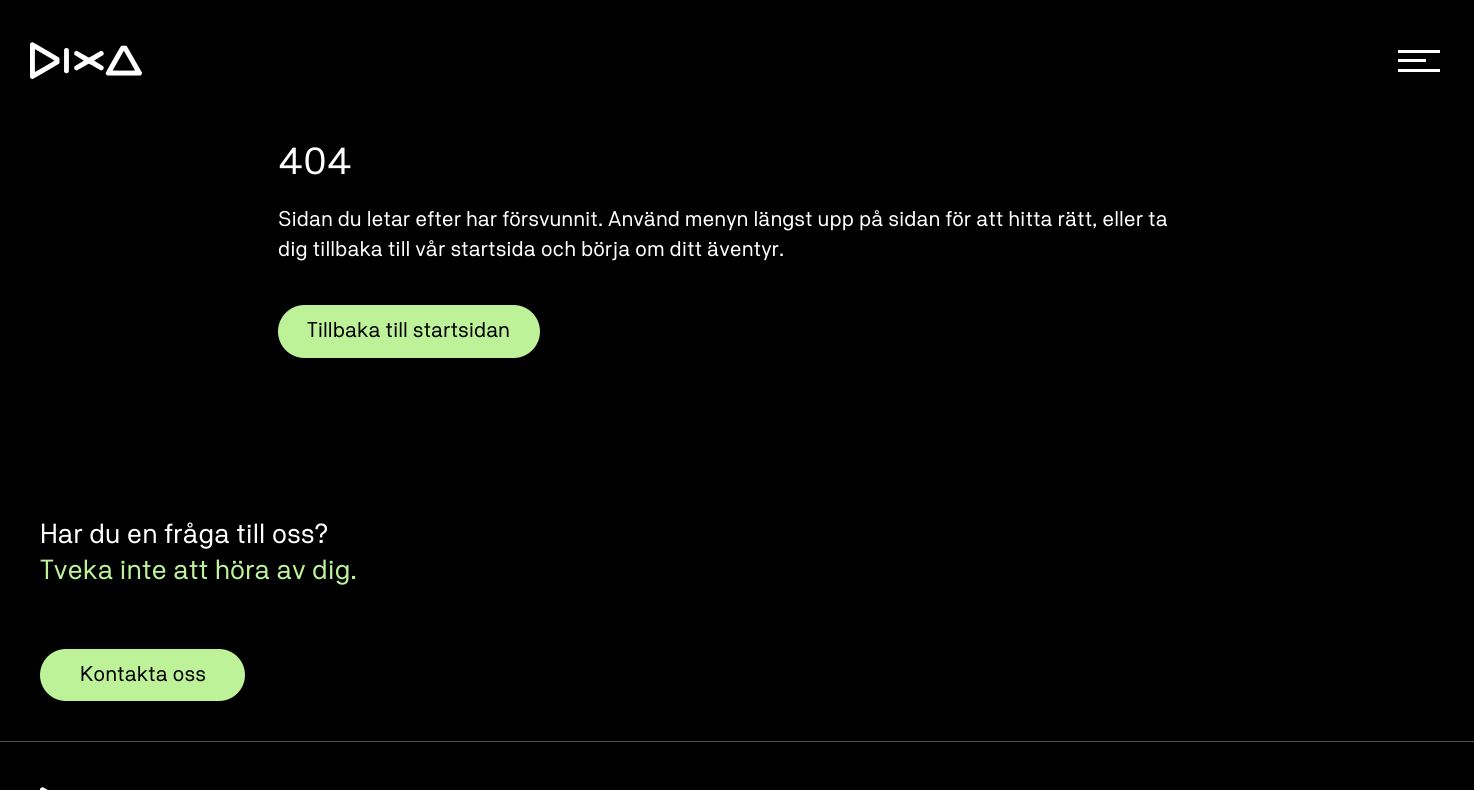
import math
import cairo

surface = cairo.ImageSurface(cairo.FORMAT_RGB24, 1474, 790)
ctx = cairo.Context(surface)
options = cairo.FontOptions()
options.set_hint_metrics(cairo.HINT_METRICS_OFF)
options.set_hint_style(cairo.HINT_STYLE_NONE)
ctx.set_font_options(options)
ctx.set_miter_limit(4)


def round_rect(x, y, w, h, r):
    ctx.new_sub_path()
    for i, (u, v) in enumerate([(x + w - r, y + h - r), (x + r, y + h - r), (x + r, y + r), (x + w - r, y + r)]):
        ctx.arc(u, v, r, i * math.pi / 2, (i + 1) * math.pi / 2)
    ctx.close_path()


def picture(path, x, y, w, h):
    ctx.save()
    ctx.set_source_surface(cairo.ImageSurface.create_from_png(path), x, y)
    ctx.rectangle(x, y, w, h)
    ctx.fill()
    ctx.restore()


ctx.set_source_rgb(0, 0, 0)
ctx.paint()
picture("img1.png", 30, 42, 112, 38)
ctx.set_source_rgb(1, 1, 1)
ctx.rectangle(1398, 50, 42, 3)
ctx.fill()
ctx.rectangle(1398, 59, 28, 3)
ctx.fill()
ctx.rectangle(1398, 69, 42, 3)
ctx.fill()
ctx.select_font_face("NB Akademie")
ctx.set_font_size(38)
ctx.move_to(278, 174)
ctx.show_text("404")
ctx.set_font_size(21.25)
ctx.move_to(278, 226)
ctx.show_text("Sidan du letar efter har försvunnit. Använd menyn längst upp på sidan för att hitta rätt, eller ta")
ctx.move_to(278, 256)
ctx.show_text("dig tillbaka till vår startsida och börja om ditt äventyr.")
ctx.set_source_rgb(0.741, 0.949, 0.6)
round_rect(278, 305, 262, 53, 26.5)
ctx.fill()
ctx.set_source_rgb(0, 0, 0)
ctx.move_to(307, 337)
ctx.show_text("Tillbaka till startsidan")
ctx.set_source_rgb(0.322, 0.322, 0.322)
ctx.rectangle(0, 741, 1474, 1)
ctx.fill()
ctx.set_font_size(27.5)
ctx.set_source_rgb(1, 1, 1)
ctx.move_to(40, 543)
ctx.show_text("Har du en fråga till oss?")
ctx.set_source_rgb(0.741, 0.949, 0.6)
ctx.move_to(40, 579)
ctx.show_text("Tveka inte att höra av dig.")
round_rect(40, 649, 205, 52, 26)
ctx.fill()
ctx.set_font_size(21.25)
ctx.set_source_rgb(0, 0, 0)
ctx.move_to(80, 681)
ctx.show_text("Kontakta oss")
picture("img2.png", 40, 787, 8, 3)
surface.write_to_png("page.png")
